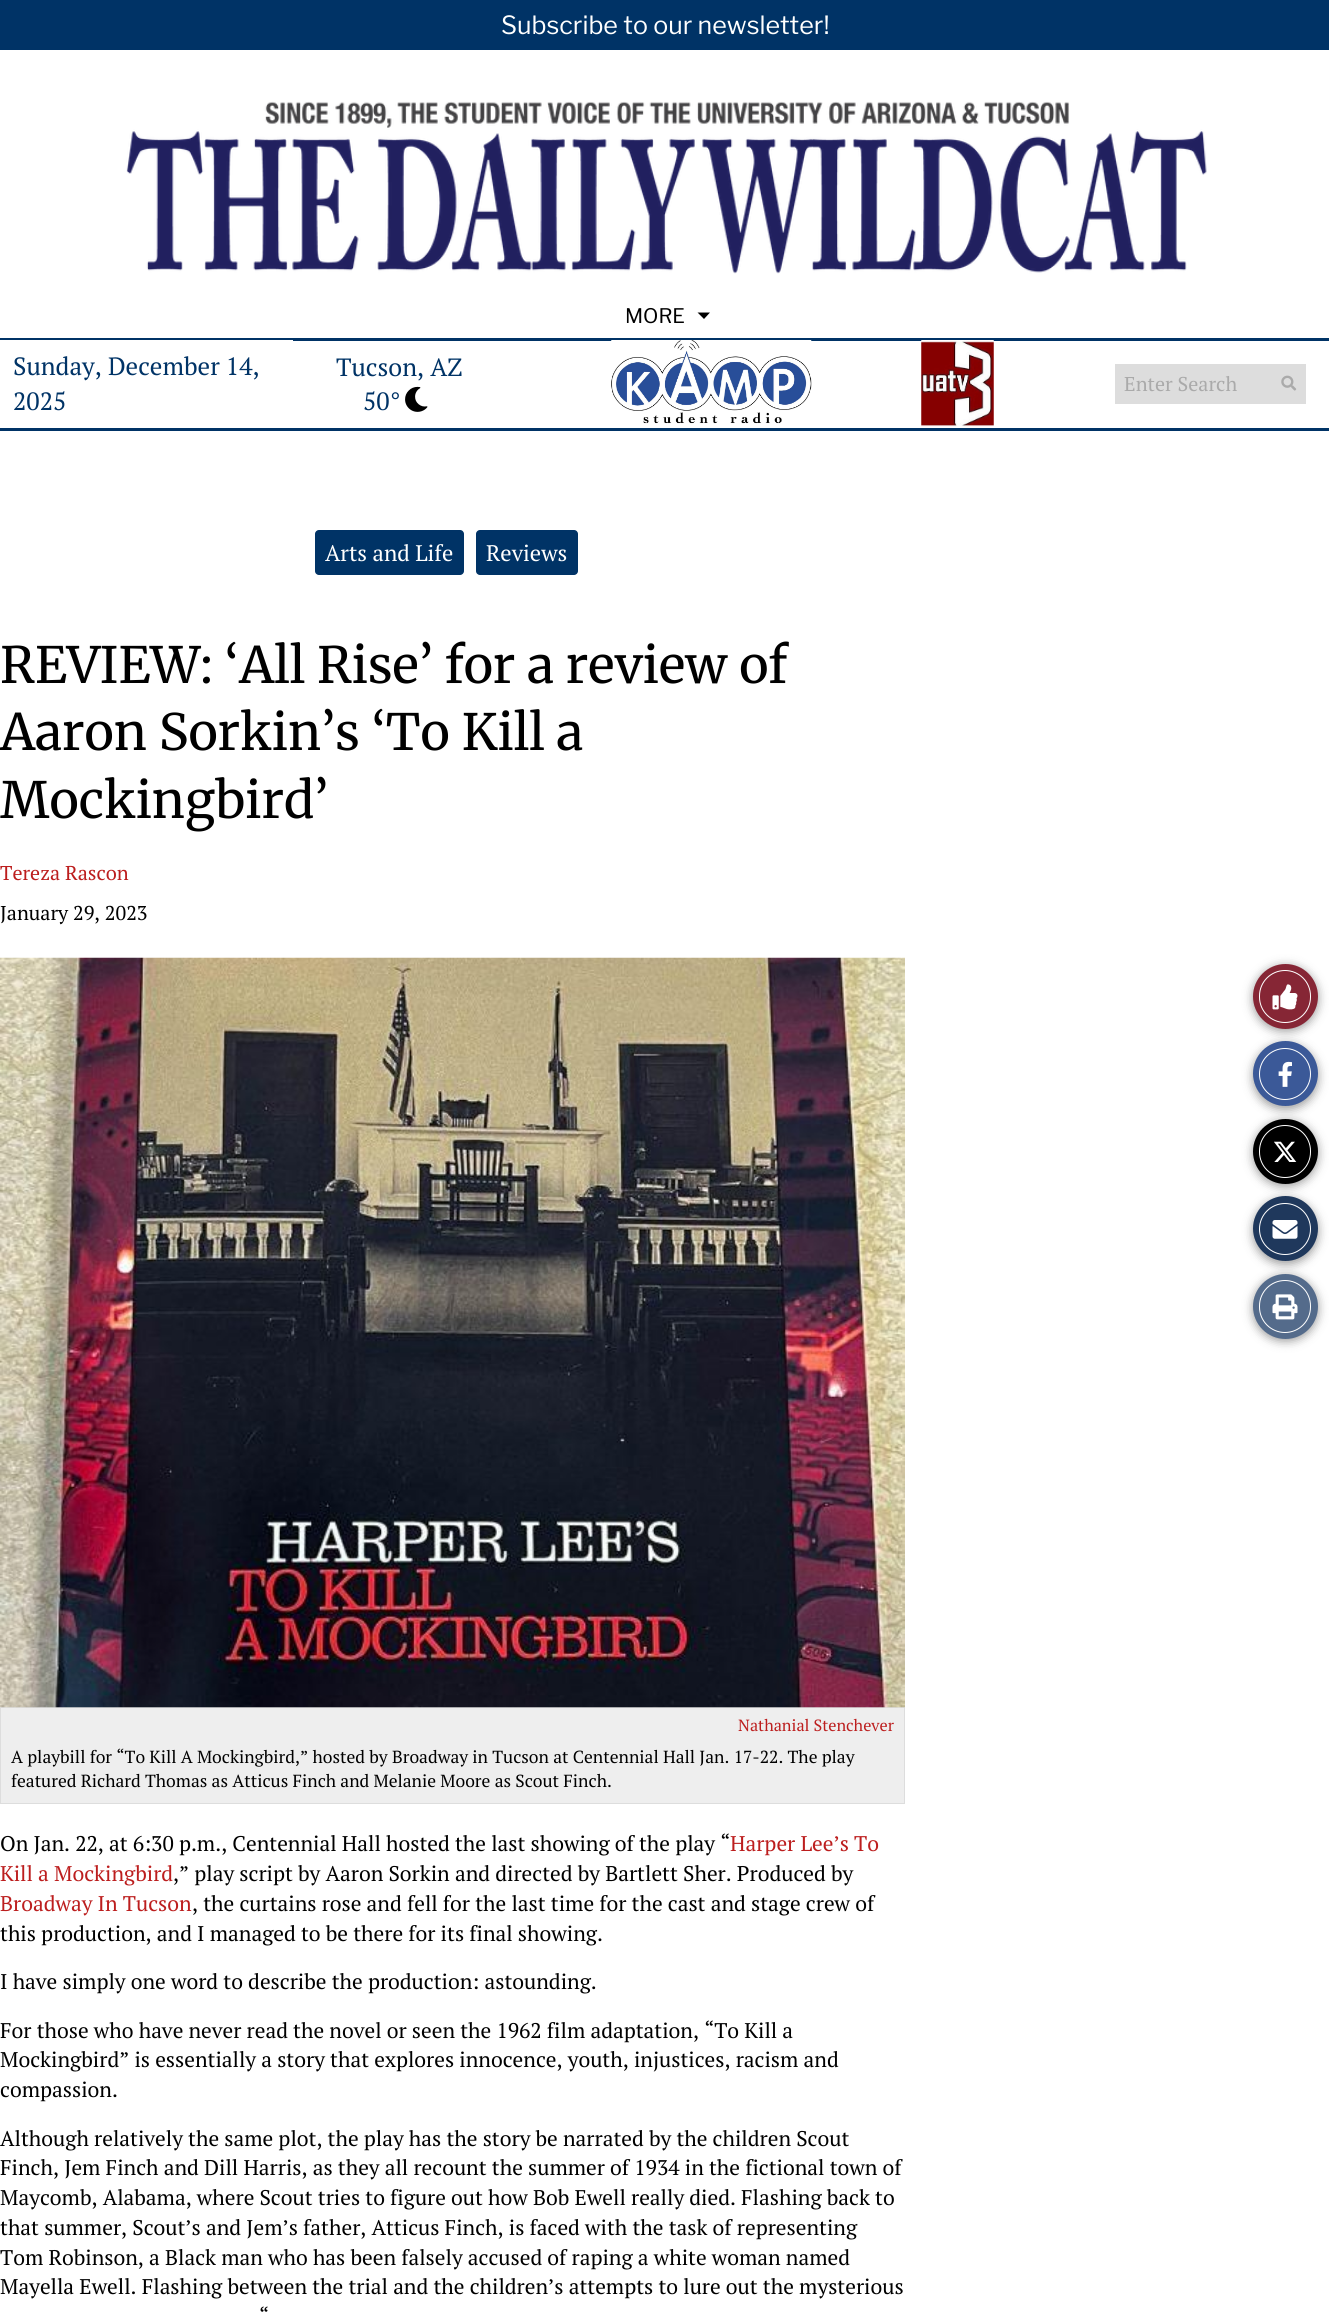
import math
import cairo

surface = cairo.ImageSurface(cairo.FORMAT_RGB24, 1329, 2313)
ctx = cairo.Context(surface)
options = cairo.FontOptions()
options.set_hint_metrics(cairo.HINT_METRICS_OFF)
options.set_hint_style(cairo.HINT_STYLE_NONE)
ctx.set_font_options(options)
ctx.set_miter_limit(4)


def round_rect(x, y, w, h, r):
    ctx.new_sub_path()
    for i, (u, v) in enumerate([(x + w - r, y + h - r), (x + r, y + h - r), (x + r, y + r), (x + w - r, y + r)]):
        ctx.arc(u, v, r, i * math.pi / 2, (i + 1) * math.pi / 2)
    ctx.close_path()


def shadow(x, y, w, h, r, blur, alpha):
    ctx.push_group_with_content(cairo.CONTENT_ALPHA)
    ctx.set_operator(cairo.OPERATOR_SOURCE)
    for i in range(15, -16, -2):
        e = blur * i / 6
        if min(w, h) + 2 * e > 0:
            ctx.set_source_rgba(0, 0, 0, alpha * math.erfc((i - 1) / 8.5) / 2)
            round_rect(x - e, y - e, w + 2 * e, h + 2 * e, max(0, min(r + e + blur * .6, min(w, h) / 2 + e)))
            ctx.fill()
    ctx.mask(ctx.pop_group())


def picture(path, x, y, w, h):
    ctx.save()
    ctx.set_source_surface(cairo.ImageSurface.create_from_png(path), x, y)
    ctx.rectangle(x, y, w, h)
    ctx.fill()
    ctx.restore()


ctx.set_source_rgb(1, 1, 1)
ctx.paint()
ctx.set_source_rgb(0, 0.2, 0.4)
ctx.rectangle(0, 0, 1329, 50)
ctx.fill()
ctx.select_font_face("Libre Franklin")
ctx.set_font_size(25)
ctx.set_source_rgb(1, 1, 1)
ctx.move_to(501, 34)
ctx.show_text("Subscribe to our newsletter!")
picture("img1.png", 126, 101, 1081, 173)
ctx.set_font_size(20)
ctx.set_source_rgb(0, 0, 0)
ctx.move_to(625, 323)
ctx.show_text("MORE")
ctx.new_path()
ctx.move_to(697.5, 312.5)
ctx.line_to(710, 312.5)
ctx.line_to(704, 319)
ctx.close_path()
ctx.fill()
ctx.set_source_rgb(0, 0.2, 0.4)
ctx.rectangle(0, 338, 1329, 3)
ctx.fill()
ctx.rectangle(0, 428, 1329, 3)
ctx.fill()
ctx.set_source_rgb(1, 1, 1)
ctx.rectangle(0, 340, 293, 1)
ctx.fill()
ctx.select_font_face("PT Serif")
ctx.set_font_size(25)
ctx.set_source_rgb(0, 0.2, 0.4)
ctx.move_to(13, 375)
ctx.show_text("Sunday, December 14,")
ctx.move_to(13, 410)
ctx.show_text("2025")
ctx.move_to(336, 376)
ctx.show_text("Tucson, AZ")
ctx.move_to(363, 410)
ctx.show_text("50°")
picture("img2.png", 405, 386, 23, 26)
picture("img3.png", 611, 340, 201, 84)
picture("img4.png", 921, 340, 73, 87)
ctx.set_source_rgb(0.867, 0.867, 0.867)
ctx.rectangle(1115, 364, 191, 40)
ctx.fill()
ctx.set_font_size(20)
ctx.set_source_rgb(0.667, 0.667, 0.667)
ctx.move_to(1124, 391)
ctx.show_text("Enter Search")
picture("img5.png", 1281, 375, 16, 16)
ctx.set_source_rgb(0, 0.2, 0.4)
round_rect(315, 530, 149, 45, 4)
ctx.fill()
ctx.set_font_size(22.5)
ctx.set_source_rgb(1, 1, 1)
ctx.move_to(325, 561)
ctx.show_text("Arts and Life")
ctx.set_source_rgb(0, 0.2, 0.4)
round_rect(476, 530, 102, 45, 4)
ctx.fill()
ctx.set_source_rgb(1, 1, 1)
ctx.move_to(486, 561)
ctx.show_text("Reviews")
ctx.select_font_face("Merriweather")
ctx.set_font_size(50)
ctx.set_source_rgb(0, 0, 0)
ctx.move_to(0, 683)
ctx.show_text("REVIEW: ‘All Rise’ for a review of")
ctx.move_to(0, 750)
ctx.show_text("Aaron Sorkin’s ‘To Kill a")
ctx.move_to(0, 818)
ctx.show_text("Mockingbird’")
ctx.select_font_face("PT Serif")
ctx.set_font_size(20)
ctx.set_source_rgb(0.737, 0.118, 0.118)
ctx.move_to(0, 880)
ctx.show_text("Tereza Rascon")
ctx.set_source_rgb(0, 0, 0)
ctx.move_to(0, 920)
ctx.show_text("January 29, 2023")
ctx.set_source_rgb(0, 0, 0)
shadow(1253, 966, 65, 65, 32.5, 5, 0.4)
ctx.set_source_rgb(0.525, 0.149, 0.208)
ctx.arc(1285.5, 996.5, 32.5, 0, 2 * math.pi)
ctx.fill()
round_rect(1259.5, 970.5, 51, 52, 25.5)
ctx.set_source_rgb(1, 1, 1)
ctx.set_line_width(1)
ctx.stroke()
picture("img6.png", 1272, 984, 26, 26)
ctx.set_source_rgb(0, 0, 0)
shadow(1253, 1044, 65, 65, 32.5, 5, 0.4)
ctx.set_source_rgb(0.231, 0.349, 0.596)
ctx.arc(1285.5, 1073.5, 32.5, 0, 2 * math.pi)
ctx.fill()
ctx.arc(1285, 1074, 25.5, 0, 2 * math.pi)
ctx.set_source_rgb(1, 1, 1)
ctx.stroke()
picture("img7.png", 1278, 1061, 14, 26)
ctx.set_source_rgb(0, 0, 0)
shadow(1253, 1121, 65, 65, 32.5, 5, 0.4)
ctx.set_source_rgb(0, 0, 0)
ctx.arc(1285.5, 1151.5, 32.5, 0, 2 * math.pi)
ctx.fill()
round_rect(1259.5, 1125.5, 51, 52, 25.5)
ctx.set_source_rgb(1, 1, 1)
ctx.stroke()
picture("img8.png", 1274, 1141, 23, 21)
ctx.set_source_rgb(0, 0, 0)
shadow(1253, 1199, 65, 65, 32.5, 5, 0.4)
ctx.set_source_rgb(0.122, 0.22, 0.361)
ctx.arc(1285.5, 1228.5, 32.5, 0, 2 * math.pi)
ctx.fill()
ctx.arc(1285, 1229, 25.5, 0, 2 * math.pi)
ctx.set_source_rgb(1, 1, 1)
ctx.stroke()
picture("img9.png", 1272, 1220, 26, 19)
ctx.set_source_rgb(0, 0, 0)
shadow(1253, 1276, 65, 65, 32.5, 5, 0.4)
ctx.set_source_rgb(0.329, 0.42, 0.545)
ctx.arc(1285.5, 1306.5, 32.5, 0, 2 * math.pi)
ctx.fill()
round_rect(1259.5, 1280.5, 51, 52, 25.5)
ctx.set_source_rgb(1, 1, 1)
ctx.stroke()
picture("img10.png", 1272, 1294, 26, 26)
ctx.set_source_rgb(0.867, 0.867, 0.867)
ctx.rectangle(0, 1707, 905, 1)
ctx.fill()
picture("img11.png", 0, 957, 905, 751)
ctx.set_source_rgb(0.933, 0.933, 0.933)
ctx.rectangle(1, 1708, 903, 95)
ctx.fill()
ctx.set_source_rgb(0.867, 0.867, 0.867)
ctx.rectangle(904, 1708, 1, 96)
ctx.fill()
ctx.rectangle(0, 1803, 905, 1)
ctx.fill()
ctx.rectangle(0, 1708, 1, 96)
ctx.fill()
ctx.set_font_size(16.25)
ctx.set_source_rgb(0.737, 0.118, 0.118)
ctx.move_to(738, 1731)
ctx.show_text("Nathanial Stenchever")
ctx.set_font_size(17.5)
ctx.set_source_rgb(0, 0, 0)
ctx.move_to(11, 1763)
ctx.show_text("A playbill for “To Kill A Mockingbird,” hosted by Broadway in Tucson at Centennial Hall Jan. 17-22. The play")
ctx.move_to(11, 1787)
ctx.show_text("featured Richard Thomas as Atticus Finch and Melanie Moore as Scout Finch.")
ctx.set_font_size(21.25)
ctx.move_to(0, 1851)
ctx.show_text("On Jan. 22, at 6:30 p.m., Centennial Hall hosted the last showing of the play “")
ctx.set_source_rgb(0.737, 0.118, 0.118)
ctx.move_to(730, 1851)
ctx.show_text("Harper Lee’s To")
ctx.move_to(0, 1881)
ctx.show_text("Kill a Mockingbird")
ctx.set_source_rgb(0, 0, 0)
ctx.move_to(173, 1881)
ctx.show_text(",” play script by Aaron Sorkin and directed by Bartlett Sher. Produced by")
ctx.set_source_rgb(0.737, 0.118, 0.118)
ctx.move_to(0, 1911)
ctx.show_text("Broadway In Tucson")
ctx.set_source_rgb(0, 0, 0)
ctx.move_to(192, 1911)
ctx.show_text(", the curtains rose and fell for the last time for the cast and stage crew of")
ctx.move_to(0, 1941)
ctx.show_text("this production, and I managed to be there for its final showing.")
ctx.move_to(0, 1989)
ctx.show_text("I have simply one word to describe the production: astounding.")
ctx.move_to(0, 2038)
ctx.show_text("For those who have never read the novel or seen the 1962 film adaptation, “To Kill a")
ctx.move_to(0, 2067)
ctx.show_text("Mockingbird” is essentially a story that explores innocence, youth, injustices, racism and")
ctx.move_to(0, 2097)
ctx.show_text("compassion.")
ctx.move_to(0, 2146)
ctx.show_text("Although relatively the same plot, the play has the story be narrated by the children Scout")
ctx.move_to(0, 2175)
ctx.show_text("Finch, Jem Finch and Dill Harris, as they all recount the summer of 1934 in the fictional town of")
ctx.move_to(0, 2205)
ctx.show_text("Maycomb, Alabama, where Scout tries to figure out how Bob Ewell really died. Flashing back to")
ctx.move_to(0, 2235)
ctx.show_text("that summer, Scout’s and Jem’s father, Atticus Finch, is faced with the task of representing")
ctx.move_to(0, 2265)
ctx.show_text("Tom Robinson, a Black man who has been falsely accused of raping a white woman named")
ctx.move_to(0, 2294)
ctx.show_text("Mayella Ewell. Flashing between the trial and the children’s attempts to lure out the mysterious")
ctx.move_to(259, 2324)
ctx.show_text("“")
surface.write_to_png("page.png")
